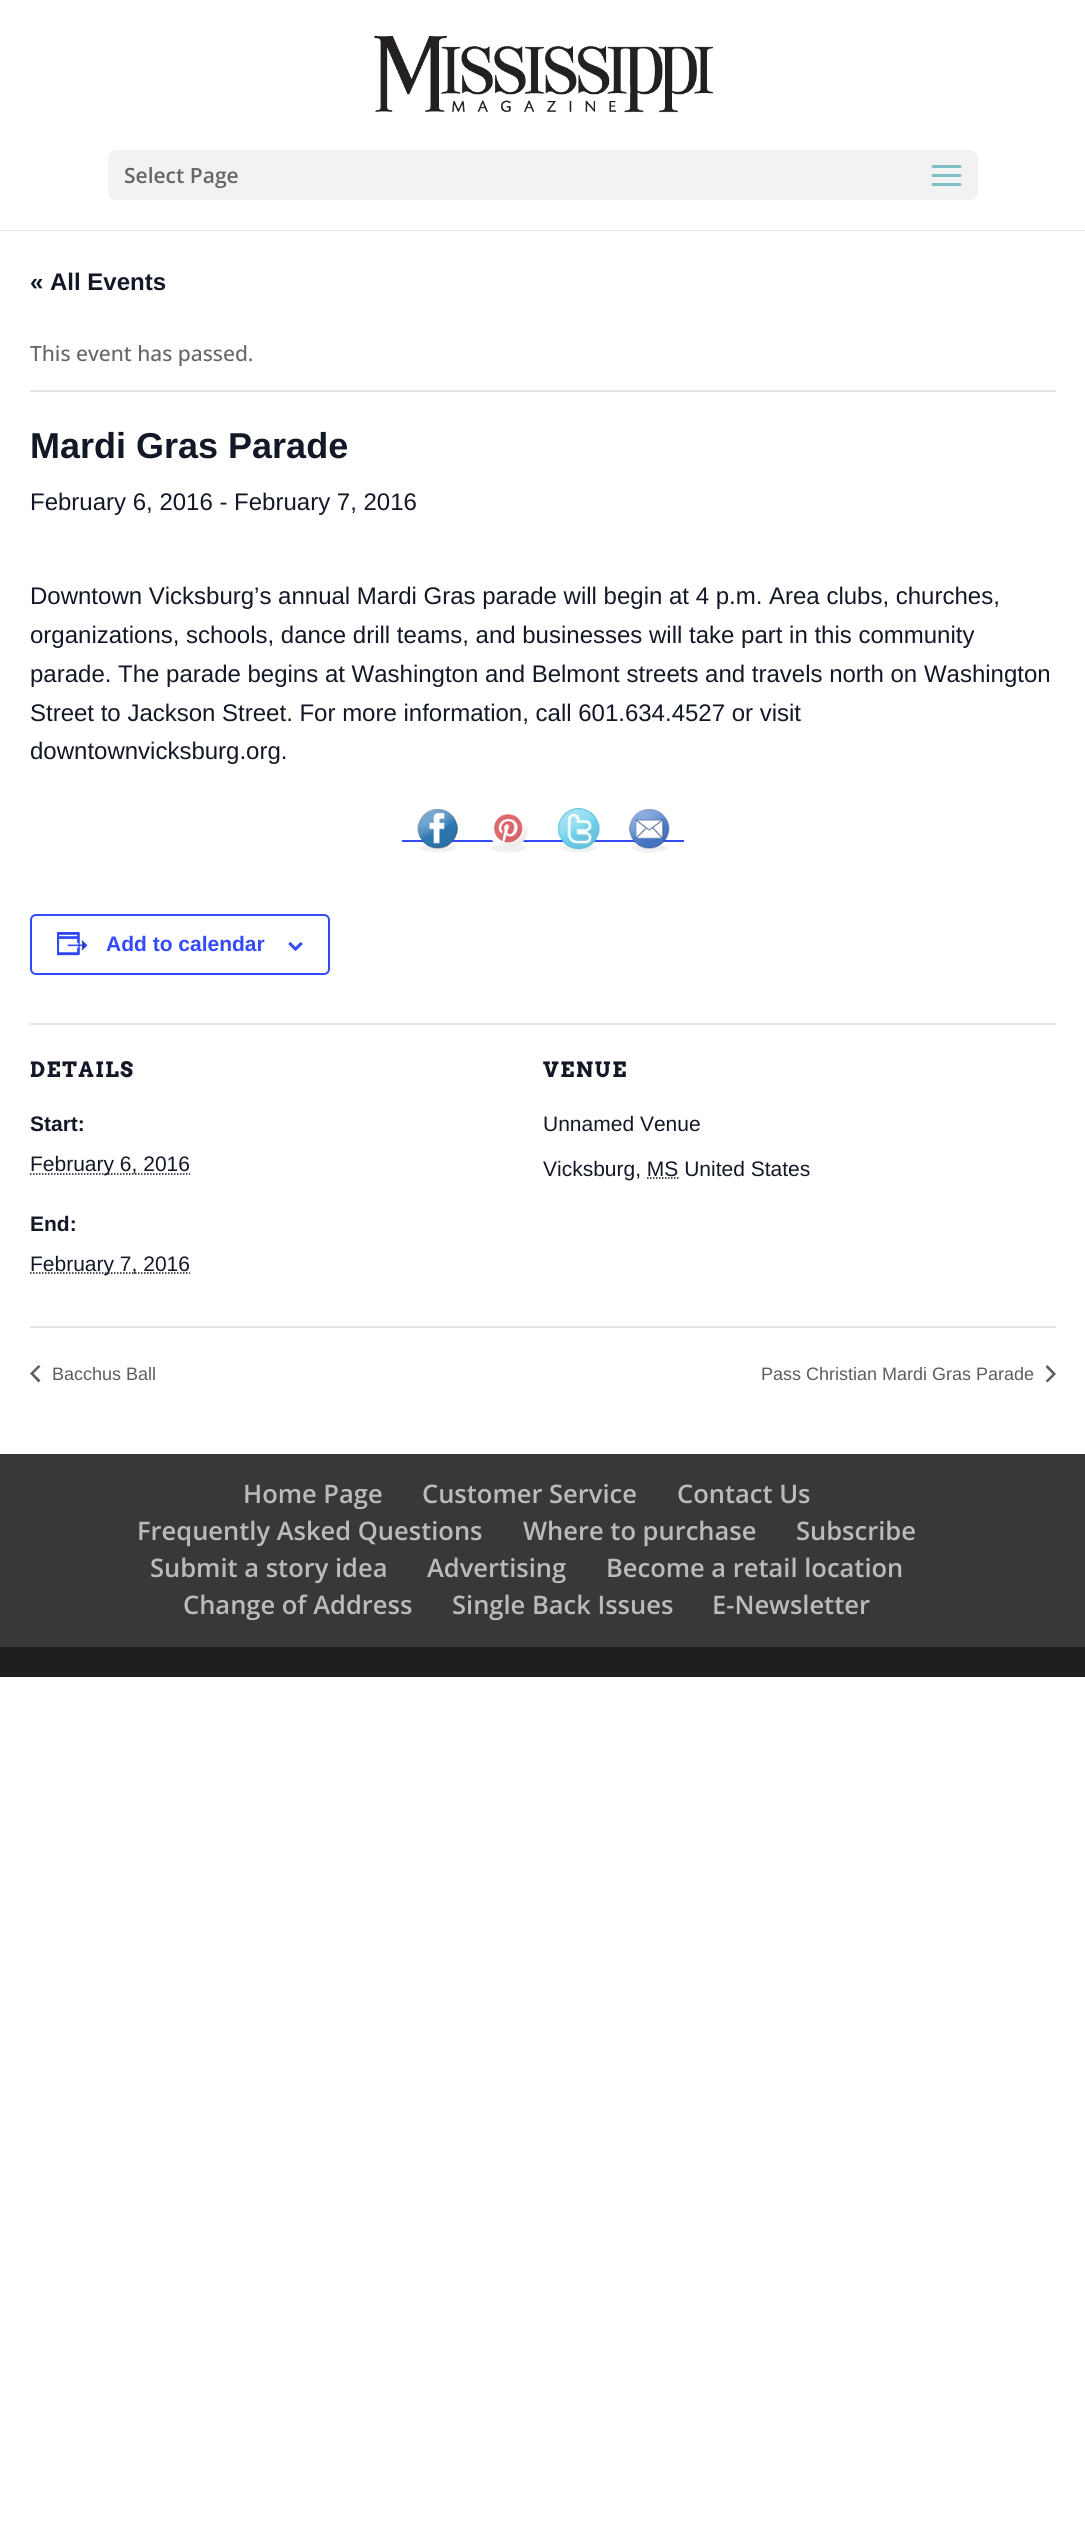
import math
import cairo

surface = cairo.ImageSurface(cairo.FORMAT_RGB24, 1085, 2547)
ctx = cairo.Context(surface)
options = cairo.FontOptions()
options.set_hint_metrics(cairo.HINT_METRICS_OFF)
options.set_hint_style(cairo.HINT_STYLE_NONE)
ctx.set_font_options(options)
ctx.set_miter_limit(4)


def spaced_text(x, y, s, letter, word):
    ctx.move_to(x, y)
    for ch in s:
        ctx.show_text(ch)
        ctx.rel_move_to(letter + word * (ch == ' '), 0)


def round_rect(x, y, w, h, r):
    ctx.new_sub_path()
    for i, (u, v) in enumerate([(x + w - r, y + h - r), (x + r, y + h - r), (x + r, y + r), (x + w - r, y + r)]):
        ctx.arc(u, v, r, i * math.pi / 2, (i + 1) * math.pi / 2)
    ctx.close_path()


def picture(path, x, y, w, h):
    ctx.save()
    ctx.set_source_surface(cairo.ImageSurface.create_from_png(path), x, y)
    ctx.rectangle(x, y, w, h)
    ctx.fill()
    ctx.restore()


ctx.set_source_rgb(1, 1, 1)
ctx.paint()
ctx.set_source_rgb(0.902, 0.902, 0.902)
ctx.rectangle(0, 230, 1085, 1)
ctx.fill()
picture("img1.png", 374, 35, 340, 78)
ctx.set_source_rgb(0.949, 0.949, 0.949)
round_rect(108, 150, 870, 50, 8)
ctx.fill()
ctx.select_font_face("Open Sans SemiBold")
ctx.set_font_size(21)
ctx.set_source_rgb(0.4, 0.4, 0.4)
ctx.move_to(124, 183)
ctx.show_text("Select Page")
picture("img2.png", 931, 165, 31, 21)
ctx.select_font_face("Liberation Sans", cairo.FONT_SLANT_NORMAL, cairo.FONT_WEIGHT_BOLD)
ctx.set_font_size(24)
ctx.set_source_rgb(0.078, 0.094, 0.153)
ctx.move_to(30, 290)
ctx.show_text("« All Events")
ctx.set_source_rgb(0.894, 0.894, 0.894)
ctx.rectangle(30, 390, 1026, 2)
ctx.fill()
ctx.select_font_face("Open Sans Medium")
ctx.set_font_size(21)
ctx.set_source_rgb(0.4, 0.4, 0.4)
ctx.move_to(30, 361)
ctx.show_text("This event has passed.")
ctx.select_font_face("Liberation Sans", cairo.FONT_SLANT_NORMAL, cairo.FONT_WEIGHT_BOLD)
ctx.set_font_size(36)
ctx.set_source_rgb(0.078, 0.094, 0.153)
ctx.move_to(30, 458)
ctx.show_text("Mardi Gras Parade")
ctx.select_font_face("Liberation Sans")
ctx.set_font_size(24)
ctx.move_to(30, 510)
ctx.show_text("February 6, 2016 - February 7, 2016")
ctx.move_to(30, 604)
ctx.show_text("Downtown Vicksburg’s annual Mardi Gras parade will begin at 4 p.m. Area clubs, churches,")
ctx.move_to(30, 643)
ctx.show_text("organizations, schools, dance drill teams, and businesses will take part in this community")
ctx.move_to(30, 682)
ctx.show_text("parade. The parade begins at Washington and Belmont streets and travels north on Washington")
ctx.move_to(30, 721)
ctx.show_text("Street to Jackson Street. For more information, call 601.634.4527 or visit")
ctx.move_to(30, 759)
ctx.show_text("downtownvicksburg.org.")
ctx.set_source_rgb(0.2, 0.29, 1)
ctx.rectangle(402, 840, 282, 2)
ctx.fill()
picture("img3.png", 417, 809, 41, 44)
picture("img4.png", 488, 813, 40, 40)
picture("img5.png", 557, 808, 43, 45)
picture("img6.png", 629, 809, 41, 44)
round_rect(31, 915, 298, 59, 5)
ctx.stroke()
picture("img7.png", 57, 932, 31, 24)
ctx.select_font_face("Liberation Sans", cairo.FONT_SLANT_NORMAL, cairo.FONT_WEIGHT_BOLD)
ctx.set_font_size(21)
ctx.move_to(106, 951)
ctx.show_text("Add to calendar")
picture("img8.png", 288, 942, 15, 9)
ctx.set_source_rgb(0.894, 0.894, 0.894)
ctx.rectangle(30, 1023, 1026, 2)
ctx.fill()
ctx.select_font_face("Arvo", cairo.FONT_SLANT_NORMAL, cairo.FONT_WEIGHT_BOLD)
ctx.set_source_rgb(0.078, 0.094, 0.153)
spaced_text(30, 1077, "DETAILS", 1.5, 0)
ctx.select_font_face("Liberation Sans", cairo.FONT_SLANT_NORMAL, cairo.FONT_WEIGHT_BOLD)
ctx.move_to(30, 1131)
ctx.show_text("Start:")
ctx.new_path()
ctx.move_to(30, 1174)
ctx.line_to(190, 1174)
ctx.set_line_width(1.5)
ctx.set_dash([1.5, 1.5])
ctx.stroke()
ctx.select_font_face("Liberation Sans")
ctx.move_to(30, 1171)
ctx.show_text("February 6, 2016")
ctx.select_font_face("Liberation Sans", cairo.FONT_SLANT_NORMAL, cairo.FONT_WEIGHT_BOLD)
ctx.move_to(30, 1231)
ctx.show_text("End:")
ctx.new_path()
ctx.move_to(30, 1273)
ctx.line_to(190, 1273)
ctx.stroke()
ctx.select_font_face("Liberation Sans")
ctx.move_to(30, 1271)
ctx.show_text("February 7, 2016")
ctx.select_font_face("Arvo", cairo.FONT_SLANT_NORMAL, cairo.FONT_WEIGHT_BOLD)
spaced_text(543, 1077, "VENUE", 1.5, 0)
ctx.select_font_face("Liberation Sans")
ctx.move_to(543, 1131)
ctx.show_text("Unnamed Venue")
ctx.move_to(543, 1176)
ctx.show_text("Vicksburg, MS United States")
ctx.new_path()
ctx.move_to(647, 1178)
ctx.line_to(678.5, 1178)
ctx.stroke()
ctx.set_source_rgb(0.894, 0.894, 0.894)
ctx.rectangle(30, 1326, 1026, 2)
ctx.fill()
ctx.set_source_rgb(0.365, 0.365, 0.365)
ctx.new_path()
ctx.move_to(40.5, 1380.5)
ctx.line_to(38.5, 1382.5)
ctx.line_to(30, 1373.5)
ctx.line_to(38.5, 1365)
ctx.line_to(40.5, 1366.5)
ctx.line_to(33.5, 1373.5)
ctx.close_path()
ctx.fill()
ctx.set_font_size(18)
ctx.move_to(52, 1380)
ctx.show_text("Bacchus Ball")
ctx.move_to(761, 1380)
ctx.show_text("Pass Christian Mardi Gras Parade")
ctx.save()
ctx.rectangle(1046, 1365, 10, 17)
ctx.clip()
ctx.new_path()
ctx.move_to(1045.5, 1367)
ctx.line_to(1047.5, 1365)
ctx.line_to(1056, 1374)
ctx.line_to(1047.5, 1382.5)
ctx.line_to(1045.5, 1381)
ctx.line_to(1052.5, 1374)
ctx.close_path()
ctx.fill()
ctx.restore()
ctx.set_source_rgb(0.22, 0.22, 0.22)
ctx.rectangle(0, 1454, 1085, 193)
ctx.fill()
ctx.select_font_face("Open Sans SemiBold")
ctx.set_font_size(25.5)
ctx.set_source_rgb(0.733, 0.733, 0.733)
ctx.move_to(243, 1503)
ctx.show_text("Home Page")
ctx.move_to(422, 1503)
ctx.show_text("Customer Service")
ctx.move_to(677, 1503)
ctx.show_text("Contact Us")
ctx.move_to(137, 1540)
ctx.show_text("Frequently Asked Questions")
ctx.move_to(523, 1540)
ctx.show_text("Where to purchase")
ctx.move_to(796, 1540)
ctx.show_text("Subscribe")
ctx.move_to(150, 1577)
ctx.show_text("Submit a story idea")
ctx.move_to(427, 1577)
ctx.show_text("Advertising")
ctx.move_to(606, 1577)
ctx.show_text("Become a retail location")
ctx.move_to(183, 1614)
ctx.show_text("Change of Address")
ctx.move_to(452, 1614)
ctx.show_text("Single Back Issues")
ctx.move_to(712, 1614)
ctx.show_text("E-Newsletter")
ctx.set_source_rgb(0.122, 0.122, 0.122)
ctx.rectangle(0, 1647, 1085, 30)
ctx.fill()
surface.write_to_png("page.png")
